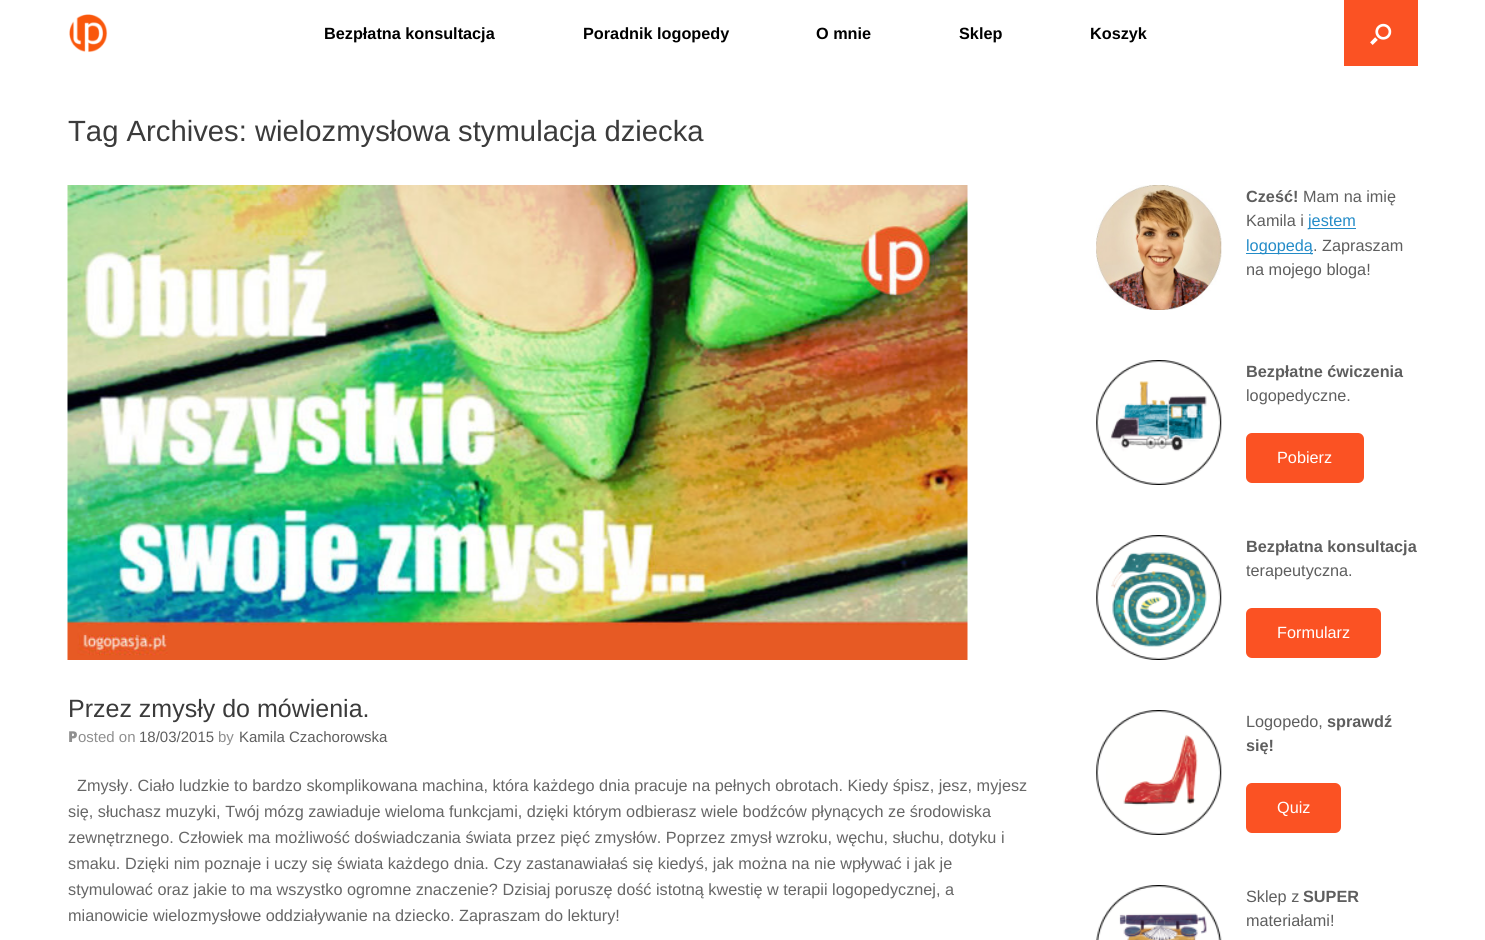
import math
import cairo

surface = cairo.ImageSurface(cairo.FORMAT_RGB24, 1485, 940)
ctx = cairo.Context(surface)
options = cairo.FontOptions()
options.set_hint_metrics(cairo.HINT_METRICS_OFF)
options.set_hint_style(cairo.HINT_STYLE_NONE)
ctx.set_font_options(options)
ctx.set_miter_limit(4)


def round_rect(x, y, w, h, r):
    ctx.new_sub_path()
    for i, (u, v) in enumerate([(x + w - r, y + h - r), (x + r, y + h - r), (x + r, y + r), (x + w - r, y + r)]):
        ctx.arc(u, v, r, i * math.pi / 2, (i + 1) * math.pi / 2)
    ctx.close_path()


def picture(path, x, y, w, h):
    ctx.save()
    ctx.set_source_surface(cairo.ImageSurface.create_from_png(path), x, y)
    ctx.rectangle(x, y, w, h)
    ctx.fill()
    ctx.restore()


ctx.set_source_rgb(1, 1, 1)
ctx.paint()
picture("img1.png", 69, 14, 39, 39)
ctx.select_font_face("Liberation Sans", cairo.FONT_SLANT_NORMAL, cairo.FONT_WEIGHT_BOLD)
ctx.set_font_size(16.25)
ctx.set_source_rgb(0, 0, 0)
ctx.move_to(324, 39)
ctx.show_text("Bezpłatna konsultacja")
ctx.move_to(583, 39)
ctx.show_text("Poradnik logopedy")
ctx.move_to(816, 39)
ctx.show_text("O mnie")
ctx.move_to(959, 39)
ctx.show_text("Sklep")
ctx.move_to(1090, 39)
ctx.show_text("Koszyk")
ctx.set_source_rgb(0.984, 0.322, 0.137)
ctx.rectangle(1344, 0, 74, 66)
ctx.fill()
picture("img2.png", 1370, 23, 22, 22)
ctx.select_font_face("Liberation Sans")
ctx.set_font_size(29.25)
ctx.set_source_rgb(0.231, 0.231, 0.231)
ctx.move_to(68, 141)
ctx.show_text("Tag Archives: wielozmysłowa stymulacja dziecka")
picture("img3.png", 67, 185, 901, 475)
ctx.set_font_size(25)
ctx.move_to(68, 717)
ctx.show_text("Przez zmysły do mówienia.")
ctx.select_font_face("Noto Sans Black")
ctx.set_font_size(15)
ctx.set_source_rgb(0.561, 0.561, 0.561)
ctx.move_to(68, 742)
ctx.show_text("P")
ctx.select_font_face("Liberation Sans")
ctx.move_to(78, 742)
ctx.show_text("osted on")
ctx.set_source_rgb(0.369, 0.369, 0.369)
ctx.move_to(139, 742)
ctx.show_text("18/03/2015")
ctx.set_source_rgb(0.561, 0.561, 0.561)
ctx.move_to(218, 742)
ctx.show_text("by")
ctx.set_source_rgb(0.369, 0.369, 0.369)
ctx.move_to(239, 742)
ctx.show_text("Kamila Czachorowska")
ctx.set_font_size(16.25)
ctx.set_source_rgb(0.4, 0.4, 0.4)
ctx.move_to(77, 791)
ctx.show_text("Zmysły. Ciało ludzkie to bardzo skomplikowana machina, która każdego dnia pracuje na pełnych obrotach. Kiedy śpisz, jesz, myjesz")
ctx.move_to(68, 817)
ctx.show_text("się, słuchasz muzyki, Twój mózg zawiaduje wieloma funkcjami, dzięki którym odbierasz wiele bodźców płynących ze środowiska")
ctx.move_to(68, 843)
ctx.show_text("zewnętrznego. Człowiek ma możliwość doświadczania świata przez pięć zmysłów. Poprzez zmysł wzroku, węchu, słuchu, dotyku i")
ctx.move_to(68, 869)
ctx.show_text("smaku. Dzięki nim poznaje i uczy się świata każdego dnia. Czy zastanawiałaś się kiedyś, jak można na nie wpływać i jak je")
ctx.move_to(68, 895)
ctx.show_text("stymulować oraz jakie to ma wszystko ogromne znaczenie? Dzisiaj poruszę dość istotną kwestię w terapii logopedycznej, a")
ctx.move_to(68, 921)
ctx.show_text("mianowicie wielozmysłowe oddziaływanie na dziecko. Zapraszam do lektury!")
picture("img4.png", 1096, 185, 126, 125)
ctx.select_font_face("Liberation Sans", cairo.FONT_SLANT_NORMAL, cairo.FONT_WEIGHT_BOLD)
ctx.set_source_rgb(0.369, 0.369, 0.369)
ctx.move_to(1246, 202)
ctx.show_text("Cześć!")
ctx.select_font_face("Liberation Sans")
ctx.move_to(1303, 202)
ctx.show_text("Mam na imię")
ctx.move_to(1246, 226)
ctx.show_text("Kamila i")
ctx.set_source_rgb(0.141, 0.549, 0.784)
ctx.rectangle(1308, 228, 48, 1)
ctx.fill()
ctx.move_to(1308, 226)
ctx.show_text("jestem")
ctx.rectangle(1246, 253, 67, 1)
ctx.fill()
ctx.move_to(1246, 251)
ctx.show_text("logopedą")
ctx.set_source_rgb(0.369, 0.369, 0.369)
ctx.move_to(1313, 251)
ctx.show_text(". Zapraszam")
ctx.move_to(1246, 275)
ctx.show_text("na mojego bloga!")
picture("img5.png", 1096, 360, 126, 125)
ctx.select_font_face("Liberation Sans", cairo.FONT_SLANT_NORMAL, cairo.FONT_WEIGHT_BOLD)
ctx.move_to(1246, 377)
ctx.show_text("Bezpłatne ćwiczenia")
ctx.select_font_face("Liberation Sans")
ctx.move_to(1246, 401)
ctx.show_text("logopedyczne.")
ctx.set_source_rgb(0.984, 0.322, 0.137)
round_rect(1246, 433, 118, 50, 6)
ctx.fill()
ctx.set_source_rgb(1, 1, 1)
ctx.move_to(1277, 463)
ctx.show_text("Pobierz")
picture("img6.png", 1096, 535, 126, 125)
ctx.select_font_face("Liberation Sans", cairo.FONT_SLANT_NORMAL, cairo.FONT_WEIGHT_BOLD)
ctx.set_source_rgb(0.369, 0.369, 0.369)
ctx.move_to(1246, 552)
ctx.show_text("Bezpłatna konsultacja")
ctx.select_font_face("Liberation Sans")
ctx.move_to(1246, 576)
ctx.show_text("terapeutyczna.")
ctx.set_source_rgb(0.984, 0.322, 0.137)
round_rect(1246, 608, 135, 50, 6)
ctx.fill()
ctx.set_source_rgb(1, 1, 1)
ctx.move_to(1277, 638)
ctx.show_text("Formularz")
picture("img7.png", 1096, 710, 126, 125)
ctx.set_source_rgb(0.369, 0.369, 0.369)
ctx.move_to(1246, 727)
ctx.show_text("Logopedo,")
ctx.select_font_face("Liberation Sans", cairo.FONT_SLANT_NORMAL, cairo.FONT_WEIGHT_BOLD)
ctx.move_to(1327, 727)
ctx.show_text("sprawdź")
ctx.move_to(1246, 751)
ctx.show_text("się!")
ctx.set_source_rgb(0.984, 0.322, 0.137)
round_rect(1246, 783, 95, 50, 6)
ctx.fill()
ctx.select_font_face("Liberation Sans")
ctx.set_source_rgb(1, 1, 1)
ctx.move_to(1277, 813)
ctx.show_text("Quiz")
picture("img8.png", 1096, 885, 126, 55)
ctx.set_source_rgb(0.369, 0.369, 0.369)
ctx.move_to(1246, 902)
ctx.show_text("Sklep z")
ctx.select_font_face("Liberation Sans", cairo.FONT_SLANT_NORMAL, cairo.FONT_WEIGHT_BOLD)
ctx.move_to(1303, 902)
ctx.show_text("SUPER")
ctx.select_font_face("Liberation Sans")
ctx.move_to(1246, 926)
ctx.show_text("materiałami!")
surface.write_to_png("page.png")
